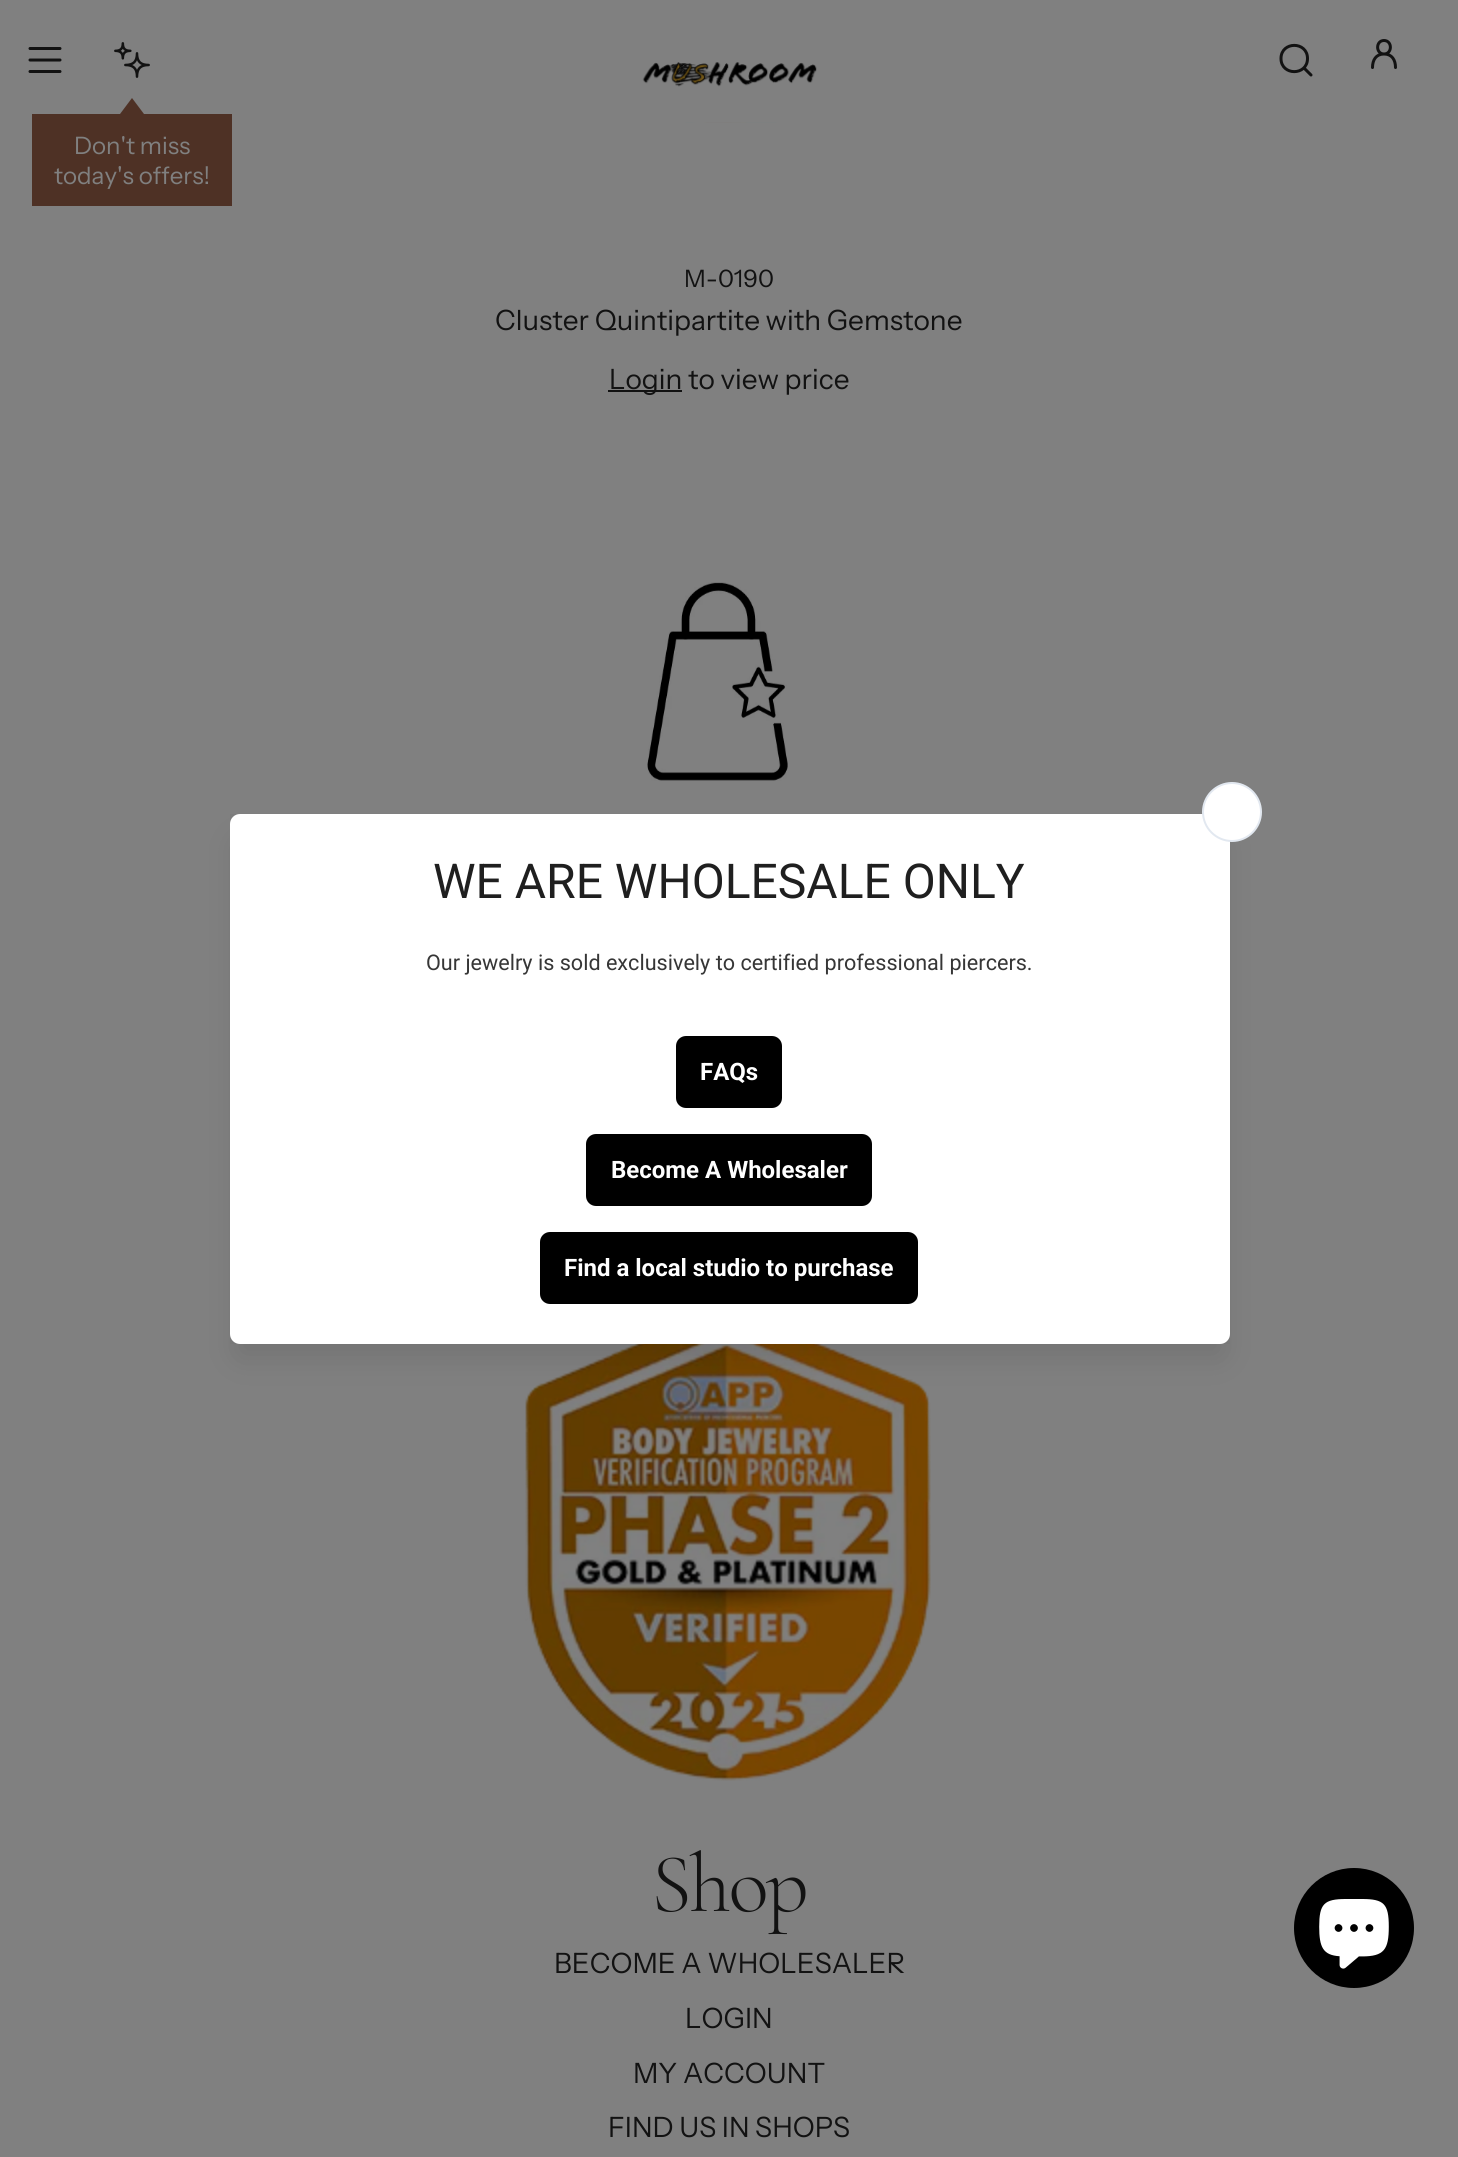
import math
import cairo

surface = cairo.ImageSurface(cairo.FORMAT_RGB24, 1458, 2157)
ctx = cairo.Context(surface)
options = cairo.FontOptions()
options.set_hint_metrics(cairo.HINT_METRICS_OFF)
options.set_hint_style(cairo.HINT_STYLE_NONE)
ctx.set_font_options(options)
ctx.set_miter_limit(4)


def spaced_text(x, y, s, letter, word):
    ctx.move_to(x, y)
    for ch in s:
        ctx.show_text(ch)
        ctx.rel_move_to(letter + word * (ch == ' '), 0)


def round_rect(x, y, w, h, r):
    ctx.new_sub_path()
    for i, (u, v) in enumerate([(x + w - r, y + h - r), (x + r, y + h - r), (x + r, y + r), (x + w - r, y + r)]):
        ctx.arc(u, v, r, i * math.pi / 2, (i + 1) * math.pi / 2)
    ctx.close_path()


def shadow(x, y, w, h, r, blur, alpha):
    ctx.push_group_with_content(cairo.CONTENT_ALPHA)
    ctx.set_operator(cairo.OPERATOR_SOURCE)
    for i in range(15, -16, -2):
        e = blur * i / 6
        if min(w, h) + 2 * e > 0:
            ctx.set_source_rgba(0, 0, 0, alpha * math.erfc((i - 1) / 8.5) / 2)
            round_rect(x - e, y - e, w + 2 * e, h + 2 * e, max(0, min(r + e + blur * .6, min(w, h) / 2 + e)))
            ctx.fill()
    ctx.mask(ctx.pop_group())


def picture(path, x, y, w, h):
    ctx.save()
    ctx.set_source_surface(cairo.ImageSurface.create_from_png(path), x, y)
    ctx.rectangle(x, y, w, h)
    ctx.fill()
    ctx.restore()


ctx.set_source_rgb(0.502, 0.502, 0.502)
ctx.paint()
picture("img1.png", 642, 62, 175, 25)
ctx.new_path()
ctx.move_to(1304.5, 68.5)
ctx.line_to(1311, 75)
ctx.move_to(1281, 58.5)
ctx.curve_to(1281, 76, 1307.5, 76, 1307.5, 58.5)
ctx.curve_to(1307.5, 41, 1281, 41, 1281, 58.5)
ctx.close_path()
ctx.set_source_rgb(0.071, 0.071, 0.071)
ctx.set_line_width(3)
ctx.set_line_cap(cairo.LINE_CAP_ROUND)
ctx.set_line_join(cairo.LINE_JOIN_ROUND)
ctx.stroke()
ctx.new_path()
ctx.move_to(1372.5, 67.5)
ctx.curve_to(1372.5, 60, 1376, 54, 1384, 54)
ctx.move_to(1384, 54)
ctx.curve_to(1392, 54, 1395.5, 60, 1395.5, 67.5)
ctx.move_to(1384, 54)
ctx.curve_to(1392.5, 54, 1392.5, 40.5, 1384, 40.5)
ctx.curve_to(1375.5, 40.5, 1375.5, 54, 1384, 54)
ctx.close_path()
ctx.stroke()
ctx.new_path()
ctx.move_to(30, 48.5)
ctx.line_to(60, 48.5)
ctx.move_to(30, 60)
ctx.line_to(60, 60)
ctx.move_to(30, 71.5)
ctx.line_to(60, 71.5)
ctx.stroke()
picture("img2.png", 114, 42, 36, 36)
ctx.set_source_rgb(0.306, 0.192, 0.145)
ctx.rectangle(32, 114, 200, 92)
ctx.fill()
ctx.new_path()
ctx.move_to(144, 114)
ctx.line_to(120, 114)
ctx.line_to(132, 98)
ctx.close_path()
ctx.fill()
ctx.select_font_face("Instrument Sans")
ctx.set_font_size(24)
ctx.set_source_rgb(0.502, 0.502, 0.502)
ctx.move_to(74, 154)
ctx.show_text("Don't miss")
ctx.move_to(54, 184)
ctx.show_text("today's offers!")
picture("img3.png", 373, 122, 726, 1)
ctx.set_source_rgb(0.071, 0.071, 0.071)
ctx.move_to(684, 287)
ctx.show_text("M-0190")
ctx.set_font_size(28)
ctx.move_to(495, 330)
ctx.show_text("Cluster Quintipartite with Gemstone")
ctx.rectangle(608, 390, 74, 2)
ctx.fill()
ctx.move_to(609, 389)
ctx.show_text("Login to view price")
picture("img5.png", 525, 1344, 406, 437)
ctx.set_source_rgb(0, 0, 0)
shadow(236, 840, 988, 518, 4, 15, 0.1)
picture("img4.png", 647, 582, 141, 199)
ctx.save()
ctx.rectangle(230, 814, 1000, 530)
ctx.clip()
shadow(236, 820, 988, 518, 4, 20, 0.12)
ctx.restore()
ctx.set_source_rgb(1, 1, 1)
round_rect(230, 814, 1000, 530, 10)
ctx.fill()
ctx.arc(1232, 812, 29, 0, 2 * math.pi)
ctx.fill_preserve()
ctx.set_source_rgb(0.886, 0.91, 0.941)
ctx.set_line_width(2)
ctx.set_line_cap(cairo.LINE_CAP_BUTT)
ctx.set_line_join(cairo.LINE_JOIN_MITER)
ctx.stroke()
ctx.select_font_face("Roboto")
ctx.set_font_size(48)
ctx.set_source_rgb(0.122, 0.122, 0.122)
ctx.move_to(433, 898)
ctx.show_text("WE ARE WHOLESALE ONLY")
ctx.set_font_size(21.6)
ctx.set_source_rgb(0.212, 0.212, 0.212)
ctx.move_to(426, 970)
ctx.show_text("Our jewelry is sold exclusively to certified professional piercers.")
ctx.set_source_rgb(0, 0, 0)
round_rect(676, 1036, 106, 72, 10)
ctx.fill()
ctx.select_font_face("Roboto", cairo.FONT_SLANT_NORMAL, cairo.FONT_WEIGHT_BOLD)
ctx.set_font_size(24)
ctx.set_source_rgb(1, 1, 1)
ctx.move_to(700, 1080)
ctx.show_text("FAQs")
ctx.set_source_rgb(0, 0, 0)
round_rect(586, 1134, 286, 72, 10)
ctx.fill()
ctx.set_source_rgb(1, 1, 1)
ctx.move_to(611, 1178)
ctx.show_text("Become A Wholesaler")
ctx.set_source_rgb(0, 0, 0)
round_rect(540, 1232, 378, 72, 10)
ctx.fill()
ctx.set_source_rgb(1, 1, 1)
ctx.move_to(564, 1276)
ctx.show_text("Find a local studio to purchase")
ctx.select_font_face("Cormorant Light")
ctx.set_font_size(84)
ctx.set_source_rgb(0.071, 0.071, 0.071)
spaced_text(651, 1911, "Shop", -2.5, 0)
ctx.select_font_face("Instrument Sans")
ctx.set_font_size(28)
ctx.move_to(554, 1973)
ctx.show_text("BECOME A WHOLESALER")
ctx.move_to(685, 2028)
ctx.show_text("LOGIN")
ctx.move_to(633, 2083)
ctx.show_text("MY ACCOUNT")
ctx.move_to(608, 2137)
ctx.show_text("FIND US IN SHOPS")
ctx.set_source_rgb(0, 0, 0)
ctx.new_path()
ctx.arc(1354, 1928, 60, 0, 2 * math.pi)
ctx.fill()
picture("img6.png", 1319, 1899, 70, 70)
surface.write_to_png("page.png")
